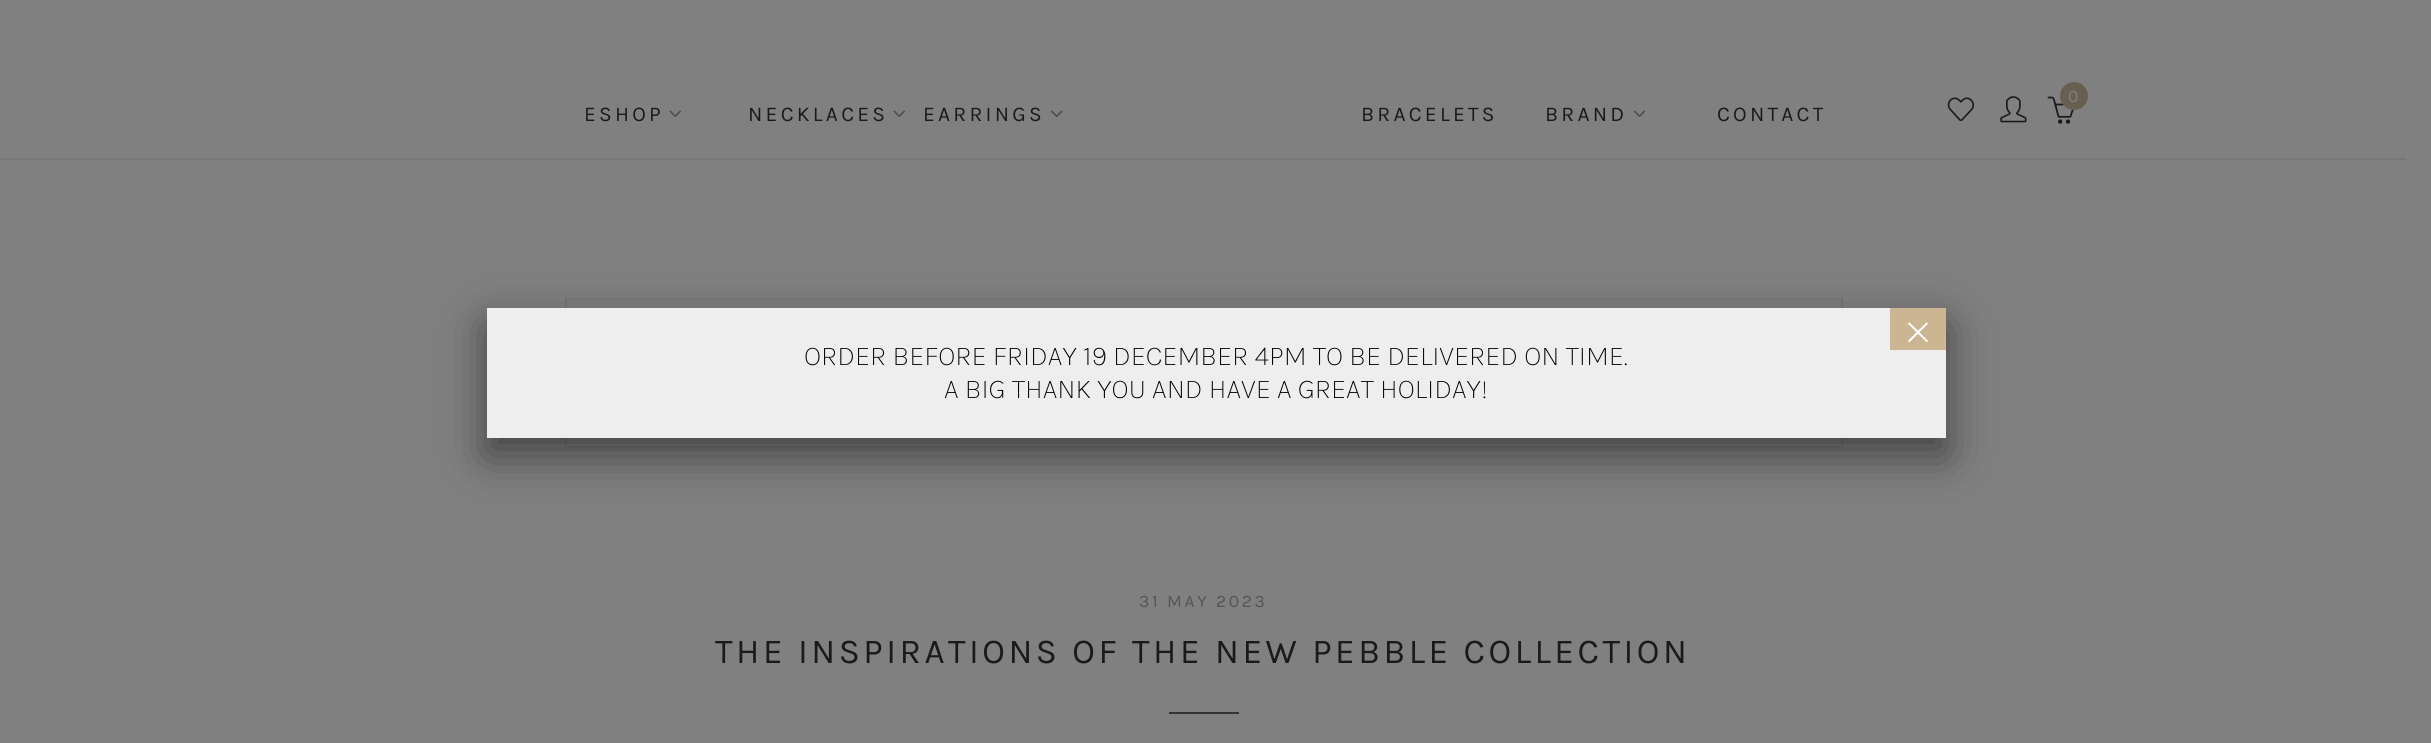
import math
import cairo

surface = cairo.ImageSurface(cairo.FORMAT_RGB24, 2431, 743)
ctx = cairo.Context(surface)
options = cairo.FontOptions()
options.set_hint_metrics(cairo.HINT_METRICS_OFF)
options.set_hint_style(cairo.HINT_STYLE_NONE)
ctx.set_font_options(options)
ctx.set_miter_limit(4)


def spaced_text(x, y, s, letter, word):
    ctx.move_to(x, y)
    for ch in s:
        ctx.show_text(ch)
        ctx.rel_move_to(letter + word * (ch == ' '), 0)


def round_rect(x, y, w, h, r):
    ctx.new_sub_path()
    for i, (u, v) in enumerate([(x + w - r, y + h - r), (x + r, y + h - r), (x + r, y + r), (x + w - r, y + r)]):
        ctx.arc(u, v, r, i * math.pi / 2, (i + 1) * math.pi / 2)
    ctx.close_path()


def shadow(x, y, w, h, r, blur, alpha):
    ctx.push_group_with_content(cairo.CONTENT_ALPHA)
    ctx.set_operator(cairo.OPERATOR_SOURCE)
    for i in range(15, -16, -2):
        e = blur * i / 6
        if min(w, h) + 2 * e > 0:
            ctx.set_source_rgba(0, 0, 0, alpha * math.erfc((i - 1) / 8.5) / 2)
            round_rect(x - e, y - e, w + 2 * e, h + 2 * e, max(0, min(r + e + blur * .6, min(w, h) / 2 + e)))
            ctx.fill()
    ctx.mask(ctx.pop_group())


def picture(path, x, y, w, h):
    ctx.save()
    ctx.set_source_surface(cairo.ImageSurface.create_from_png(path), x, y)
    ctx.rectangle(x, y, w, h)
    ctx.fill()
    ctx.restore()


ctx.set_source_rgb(0.502, 0.502, 0.502)
ctx.paint()
ctx.select_font_face("Karla")
ctx.set_font_size(21)
ctx.set_source_rgb(0.102, 0.102, 0.102)
spaced_text(584, 121, "ESHOP", 3.25, 0)
picture("img1.png", 669, 110, 12, 8)
spaced_text(748, 121, "NECKLACES", 3.25, 0)
picture("img1.png", 893, 110, 12, 8)
spaced_text(923, 121, "EARRINGS", 3.25, 0)
picture("img2.png", 1051, 110, 12, 8)
spaced_text(1361, 121, "BRACELETS", 3.25, 0)
spaced_text(1545, 121, "BRAND", 3.25, 0)
picture("img3.png", 1633, 110, 13, 8)
spaced_text(1717, 121, "CONTACT", 3.25, 0)
picture("img4.png", 1947, 97, 27, 25)
picture("img5.png", 2000, 96, 27, 27)
picture("img6.png", 2047, 96, 27, 28)
ctx.set_source_rgb(0.412, 0.373, 0.314)
ctx.arc(2074, 96, 14, 0, 2 * math.pi)
ctx.fill()
ctx.set_font_size(17.5)
ctx.set_source_rgb(0.502, 0.502, 0.502)
ctx.move_to(2068, 102)
ctx.show_text("0")
ctx.set_source_rgb(0.467, 0.467, 0.467)
ctx.rectangle(0, 158, 2406, 2)
ctx.fill()
ctx.rectangle(566, 299, 1276, 148)
ctx.stroke()
ctx.set_source_rgb(0.333, 0.333, 0.333)
spaced_text(1139, 607, "31 MAY 2023", 2.6, 0)
ctx.set_font_size(35)
ctx.set_source_rgb(0.102, 0.102, 0.102)
spaced_text(715, 663, "THE INSPIRATIONS OF THE NEW PEBBLE COLLECTION", 3.5, 0)
ctx.set_source_rgb(0.2, 0.2, 0.2)
ctx.rectangle(1169, 712, 70, 2)
ctx.fill()
ctx.set_source_rgb(0.008, 0.008, 0.008)
shadow(487, 326, 1459, 129, 0, 22, 0.5)
ctx.set_source_rgb(0.933, 0.933, 0.933)
ctx.rectangle(487, 308, 1459, 130)
ctx.fill()
ctx.set_source_rgb(0.8, 0.71, 0.576)
ctx.rectangle(1890, 308, 56, 42)
ctx.fill()
ctx.select_font_face("Karla ExtraLight")
ctx.set_font_size(56)
ctx.set_source_rgb(1, 1, 1)
ctx.move_to(1904, 346)
ctx.show_text("×")
ctx.set_font_size(28)
ctx.set_source_rgb(0, 0, 0)
ctx.move_to(804, 365)
ctx.show_text("ORDER BEFORE FRIDAY 19 DECEMBER 4PM TO BE DELIVERED ON TIME.")
ctx.move_to(944, 398)
ctx.show_text("A BIG THANK YOU AND HAVE A GREAT HOLIDAY!")
surface.write_to_png("page.png")
